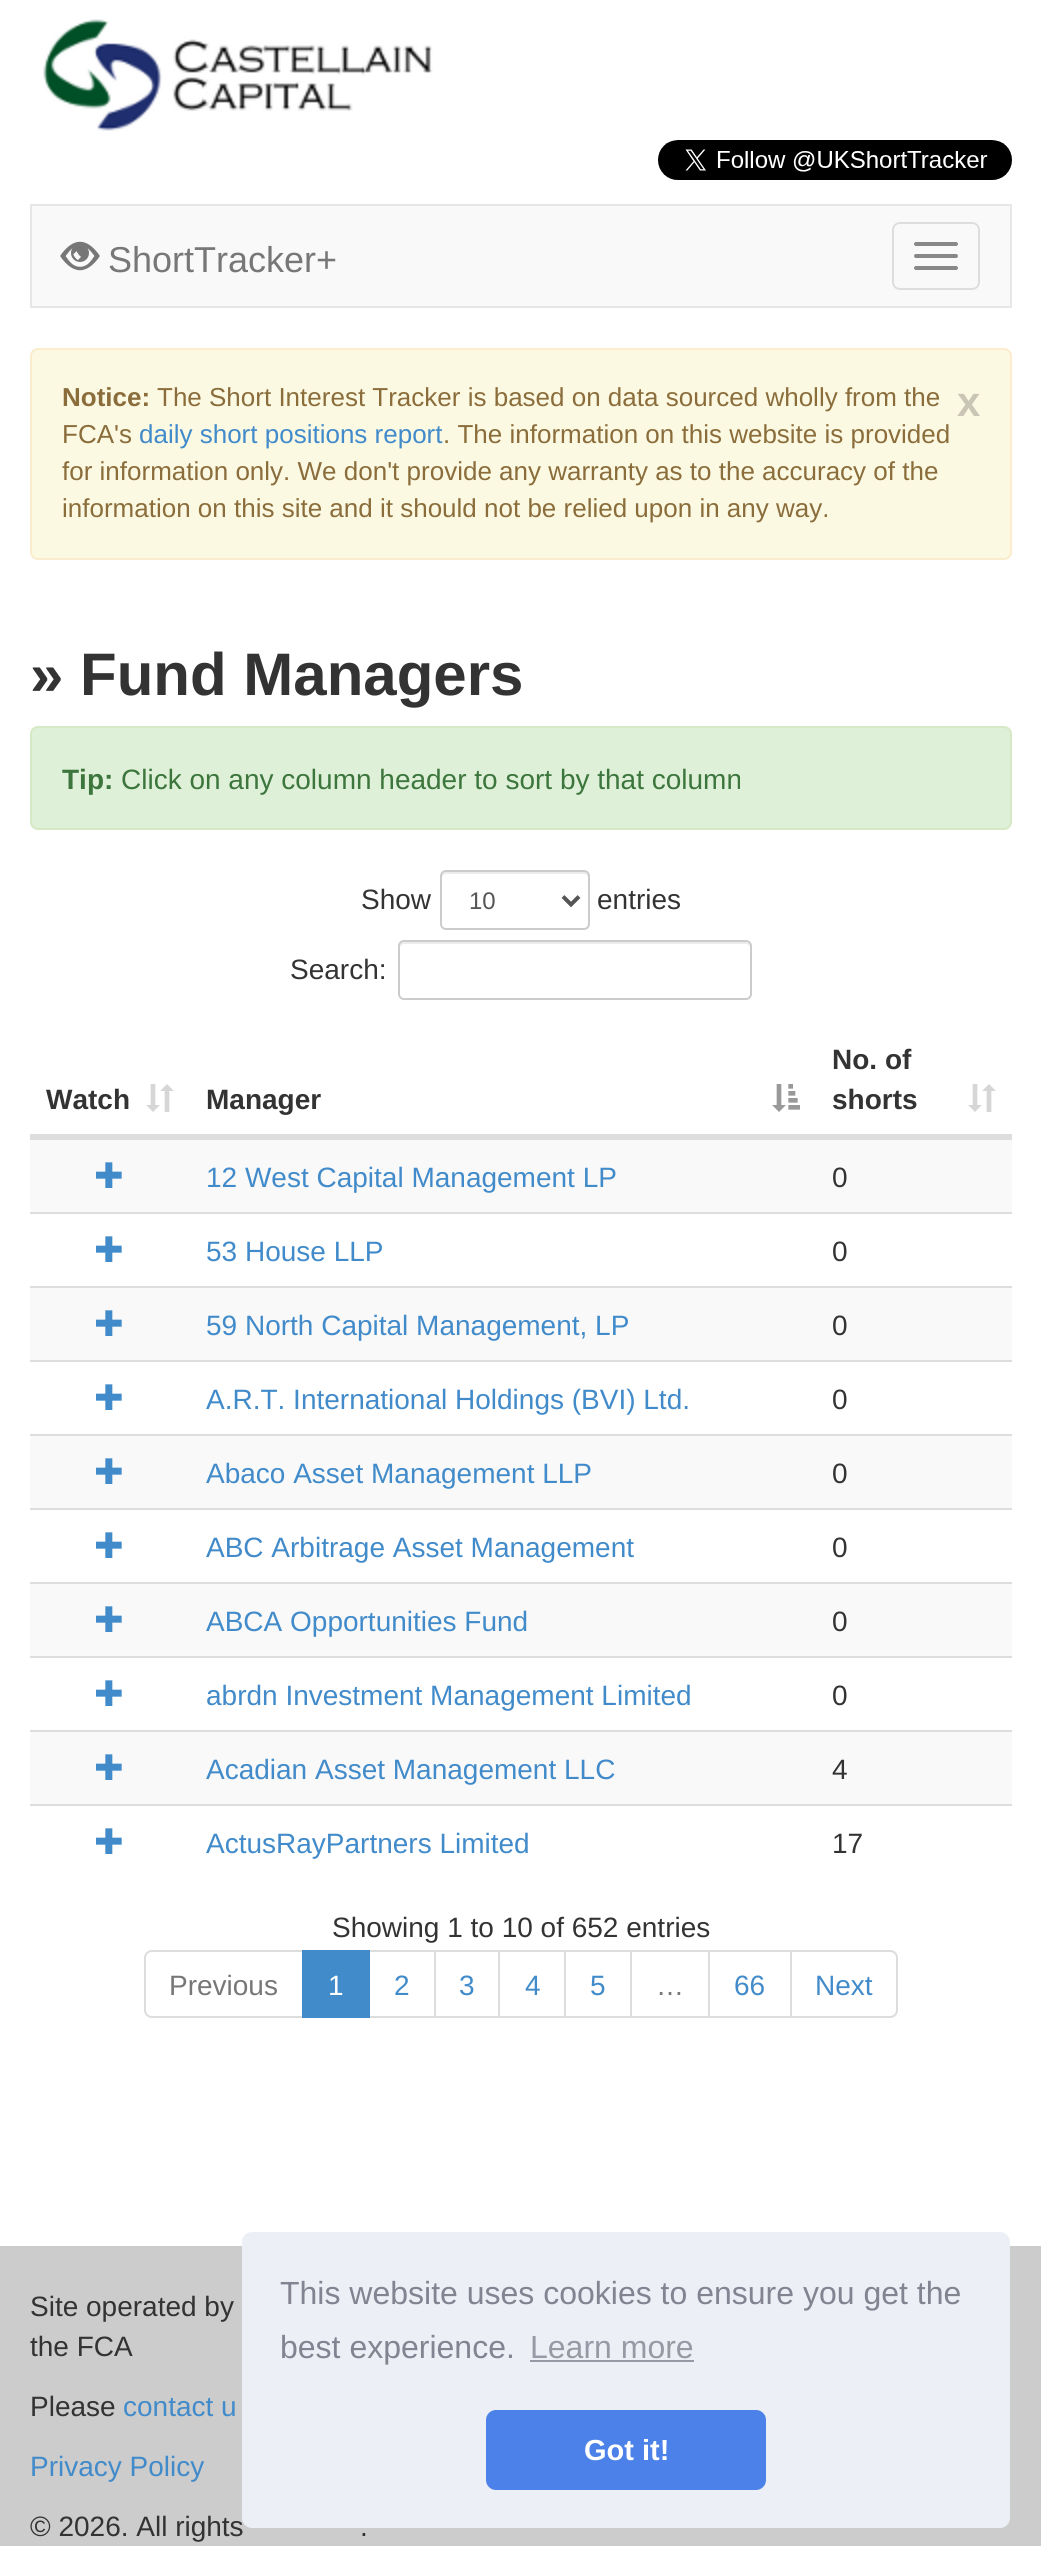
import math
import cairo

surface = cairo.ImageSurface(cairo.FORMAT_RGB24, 1041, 2560)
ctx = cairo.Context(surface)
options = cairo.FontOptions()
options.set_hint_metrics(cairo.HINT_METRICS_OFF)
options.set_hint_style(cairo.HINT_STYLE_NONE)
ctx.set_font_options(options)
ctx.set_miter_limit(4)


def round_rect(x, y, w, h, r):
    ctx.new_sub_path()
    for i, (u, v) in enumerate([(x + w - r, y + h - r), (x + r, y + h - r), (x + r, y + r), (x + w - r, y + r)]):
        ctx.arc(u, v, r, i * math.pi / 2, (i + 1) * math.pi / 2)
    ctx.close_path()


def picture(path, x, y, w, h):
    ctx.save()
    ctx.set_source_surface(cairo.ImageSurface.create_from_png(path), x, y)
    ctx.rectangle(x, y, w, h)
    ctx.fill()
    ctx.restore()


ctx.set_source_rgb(1, 1, 1)
ctx.paint()
picture("img1.png", 43, 19, 390, 112)
picture("img2.png", 658, 140, 354, 40)
ctx.set_source_rgb(0.973, 0.973, 0.973)
ctx.rectangle(31, 205, 980, 102)
ctx.fill_preserve()
ctx.set_source_rgb(0.906, 0.906, 0.906)
ctx.stroke()
picture("img3.png", 60, 241, 40, 30)
ctx.select_font_face("Liberation Sans")
ctx.set_font_size(36)
ctx.set_source_rgb(0.467, 0.467, 0.467)
ctx.move_to(108, 272)
ctx.show_text("ShortTracker+")
round_rect(893, 223, 86, 66, 7)
ctx.set_source_rgb(0.867, 0.867, 0.867)
ctx.stroke()
ctx.set_source_rgb(0.533, 0.533, 0.533)
round_rect(914, 242, 44, 4, 2)
ctx.fill()
round_rect(914, 254, 44, 4, 2)
ctx.fill()
round_rect(914, 266, 44, 4, 2)
ctx.fill()
ctx.set_source_rgb(0.988, 0.973, 0.89)
round_rect(31, 349, 980, 210, 7)
ctx.fill_preserve()
ctx.set_source_rgb(0.98, 0.922, 0.8)
ctx.stroke()
ctx.select_font_face("Liberation Sans", cairo.FONT_SLANT_NORMAL, cairo.FONT_WEIGHT_BOLD)
ctx.set_font_size(26)
ctx.set_source_rgb(0.541, 0.427, 0.231)
ctx.move_to(62, 406)
ctx.show_text("Notice:")
ctx.select_font_face("Liberation Sans")
ctx.move_to(157, 406)
ctx.show_text("The Short Interest Tracker is based on data sourced wholly from the")
ctx.select_font_face("Liberation Sans", cairo.FONT_SLANT_NORMAL, cairo.FONT_WEIGHT_BOLD)
ctx.set_font_size(42)
ctx.set_source_rgb(0.792, 0.776, 0.714)
ctx.move_to(957, 416)
ctx.show_text("x")
ctx.select_font_face("Liberation Sans")
ctx.set_font_size(26)
ctx.set_source_rgb(0.541, 0.427, 0.231)
ctx.move_to(62, 443)
ctx.show_text("FCA's")
ctx.set_source_rgb(0.259, 0.545, 0.792)
ctx.move_to(139, 443)
ctx.show_text("daily short positions report")
ctx.set_source_rgb(0.541, 0.427, 0.231)
ctx.move_to(443, 443)
ctx.show_text(". The information on this website is provided")
ctx.move_to(62, 480)
ctx.show_text("for information only. We don't provide any warranty as to the accuracy of the")
ctx.move_to(62, 517)
ctx.show_text("information on this site and it should not be relied upon in any way.")
ctx.select_font_face("Liberation Sans", cairo.FONT_SLANT_NORMAL, cairo.FONT_WEIGHT_BOLD)
ctx.set_font_size(60)
ctx.set_source_rgb(0.2, 0.2, 0.2)
ctx.move_to(30, 695)
ctx.show_text("» Fund Managers")
ctx.set_source_rgb(0.875, 0.941, 0.847)
round_rect(31, 727, 980, 102, 7)
ctx.fill_preserve()
ctx.set_source_rgb(0.839, 0.914, 0.776)
ctx.stroke()
ctx.set_font_size(28)
ctx.set_source_rgb(0.235, 0.463, 0.239)
ctx.move_to(62, 789)
ctx.show_text("Tip:")
ctx.select_font_face("Liberation Sans")
ctx.move_to(121, 789)
ctx.show_text("Click on any column header to sort by that column")
ctx.set_source_rgb(0.2, 0.2, 0.2)
ctx.move_to(361, 909)
ctx.show_text("Show")
ctx.set_source_rgb(0.925, 0.925, 0.925)
ctx.new_path()
ctx.move_to(446, 874)
ctx.line_to(584, 874)
ctx.curve_to(586, 874, 588, 876, 588, 878)
ctx.line_to(588, 876)
ctx.curve_to(588, 874, 586, 872, 584, 872)
ctx.line_to(446, 872)
ctx.curve_to(444, 872, 442, 874, 442, 876)
ctx.line_to(442, 878)
ctx.curve_to(442, 876, 444, 874, 446, 874)
ctx.close_path()
ctx.fill()
round_rect(441, 871, 148, 58, 5)
ctx.set_source_rgb(0.8, 0.8, 0.8)
ctx.stroke()
ctx.new_path()
ctx.move_to(563, 896.5)
ctx.line_to(571, 904.5)
ctx.line_to(579, 896.5)
ctx.set_source_rgb(0.333, 0.333, 0.333)
ctx.set_line_width(4)
ctx.stroke()
ctx.set_font_size(24)
ctx.move_to(469, 909)
ctx.show_text("10")
ctx.set_font_size(28)
ctx.set_source_rgb(0.2, 0.2, 0.2)
ctx.move_to(597, 909)
ctx.show_text("entries")
ctx.move_to(290, 979)
ctx.show_text("Search:")
ctx.set_source_rgb(0.925, 0.925, 0.925)
ctx.new_path()
ctx.move_to(404, 944)
ctx.line_to(746, 944)
ctx.curve_to(748, 944, 750, 946, 750, 948)
ctx.curve_to(750, 945, 750, 942, 746, 942)
ctx.line_to(403, 942)
ctx.curve_to(400, 943, 400, 945, 400, 948)
ctx.curve_to(400, 946, 402, 944, 404, 944)
ctx.close_path()
ctx.fill()
round_rect(399, 941, 352, 58, 5)
ctx.set_source_rgb(0.8, 0.8, 0.8)
ctx.set_line_width(2)
ctx.stroke()
ctx.set_source_rgb(0.867, 0.867, 0.867)
ctx.rectangle(30, 1134, 982, 4)
ctx.fill()
ctx.select_font_face("Liberation Sans", cairo.FONT_SLANT_NORMAL, cairo.FONT_WEIGHT_BOLD)
ctx.set_source_rgb(0.2, 0.2, 0.2)
ctx.move_to(46, 1109)
ctx.show_text("Watch")
picture("img4.png", 146, 1084, 28, 28)
ctx.move_to(206, 1109)
ctx.show_text("Manager")
picture("img5.png", 772, 1084, 28, 28)
ctx.move_to(832, 1069)
ctx.show_text("No. of")
ctx.move_to(832, 1109)
ctx.show_text("shorts")
picture("img4.png", 968, 1084, 28, 28)
ctx.set_source_rgb(0.976, 0.976, 0.976)
ctx.rectangle(30, 1140, 982, 72)
ctx.fill()
ctx.set_source_rgb(0.867, 0.867, 0.867)
ctx.rectangle(30, 1138, 982, 2)
ctx.fill()
picture("img6.png", 96, 1162, 26, 26)
ctx.select_font_face("Liberation Sans")
ctx.set_source_rgb(0.259, 0.545, 0.792)
ctx.move_to(206, 1187)
ctx.show_text("12 West Capital Management LP")
ctx.set_source_rgb(0.2, 0.2, 0.2)
ctx.move_to(832, 1187)
ctx.show_text("0")
ctx.set_source_rgb(0.867, 0.867, 0.867)
ctx.rectangle(30, 1212, 982, 2)
ctx.fill()
picture("img7.png", 96, 1236, 26, 26)
ctx.set_source_rgb(0.259, 0.545, 0.792)
ctx.move_to(206, 1261)
ctx.show_text("53 House LLP")
ctx.set_source_rgb(0.2, 0.2, 0.2)
ctx.move_to(832, 1261)
ctx.show_text("0")
ctx.set_source_rgb(0.976, 0.976, 0.976)
ctx.rectangle(30, 1288, 982, 72)
ctx.fill()
ctx.set_source_rgb(0.867, 0.867, 0.867)
ctx.rectangle(30, 1286, 982, 2)
ctx.fill()
picture("img6.png", 96, 1310, 26, 26)
ctx.set_source_rgb(0.259, 0.545, 0.792)
ctx.move_to(206, 1335)
ctx.show_text("59 North Capital Management, LP")
ctx.set_source_rgb(0.2, 0.2, 0.2)
ctx.move_to(832, 1335)
ctx.show_text("0")
ctx.set_source_rgb(0.867, 0.867, 0.867)
ctx.rectangle(30, 1360, 982, 2)
ctx.fill()
picture("img7.png", 96, 1384, 26, 26)
ctx.set_source_rgb(0.259, 0.545, 0.792)
ctx.move_to(206, 1409)
ctx.show_text("A.R.T. International Holdings (BVI) Ltd.")
ctx.set_source_rgb(0.2, 0.2, 0.2)
ctx.move_to(832, 1409)
ctx.show_text("0")
ctx.set_source_rgb(0.976, 0.976, 0.976)
ctx.rectangle(30, 1436, 982, 72)
ctx.fill()
ctx.set_source_rgb(0.867, 0.867, 0.867)
ctx.rectangle(30, 1434, 982, 2)
ctx.fill()
picture("img6.png", 96, 1458, 26, 26)
ctx.set_source_rgb(0.259, 0.545, 0.792)
ctx.move_to(206, 1483)
ctx.show_text("Abaco Asset Management LLP")
ctx.set_source_rgb(0.2, 0.2, 0.2)
ctx.move_to(832, 1483)
ctx.show_text("0")
ctx.set_source_rgb(0.867, 0.867, 0.867)
ctx.rectangle(30, 1508, 982, 2)
ctx.fill()
picture("img7.png", 96, 1532, 26, 26)
ctx.set_source_rgb(0.259, 0.545, 0.792)
ctx.move_to(206, 1557)
ctx.show_text("ABC Arbitrage Asset Management")
ctx.set_source_rgb(0.2, 0.2, 0.2)
ctx.move_to(832, 1557)
ctx.show_text("0")
ctx.set_source_rgb(0.976, 0.976, 0.976)
ctx.rectangle(30, 1584, 982, 72)
ctx.fill()
ctx.set_source_rgb(0.867, 0.867, 0.867)
ctx.rectangle(30, 1582, 982, 2)
ctx.fill()
picture("img6.png", 96, 1606, 26, 26)
ctx.set_source_rgb(0.259, 0.545, 0.792)
ctx.move_to(206, 1631)
ctx.show_text("ABCA Opportunities Fund")
ctx.set_source_rgb(0.2, 0.2, 0.2)
ctx.move_to(832, 1631)
ctx.show_text("0")
ctx.set_source_rgb(0.867, 0.867, 0.867)
ctx.rectangle(30, 1656, 982, 2)
ctx.fill()
picture("img7.png", 96, 1680, 26, 26)
ctx.set_source_rgb(0.259, 0.545, 0.792)
ctx.move_to(206, 1705)
ctx.show_text("abrdn Investment Management Limited")
ctx.set_source_rgb(0.2, 0.2, 0.2)
ctx.move_to(832, 1705)
ctx.show_text("0")
ctx.set_source_rgb(0.976, 0.976, 0.976)
ctx.rectangle(30, 1732, 982, 72)
ctx.fill()
ctx.set_source_rgb(0.867, 0.867, 0.867)
ctx.rectangle(30, 1730, 982, 2)
ctx.fill()
picture("img6.png", 96, 1754, 26, 26)
ctx.set_source_rgb(0.259, 0.545, 0.792)
ctx.move_to(206, 1779)
ctx.show_text("Acadian Asset Management LLC")
ctx.set_source_rgb(0.2, 0.2, 0.2)
ctx.move_to(832, 1779)
ctx.show_text("4")
ctx.set_source_rgb(0.867, 0.867, 0.867)
ctx.rectangle(30, 1804, 982, 2)
ctx.fill()
picture("img7.png", 96, 1828, 26, 26)
ctx.set_source_rgb(0.259, 0.545, 0.792)
ctx.move_to(206, 1853)
ctx.show_text("ActusRayPartners Limited")
ctx.set_source_rgb(0.2, 0.2, 0.2)
ctx.move_to(832, 1853)
ctx.show_text("17")
ctx.move_to(332, 1937)
ctx.show_text("Showing 1 to 10 of 652 entries")
ctx.new_path()
ctx.move_to(152, 1951)
ctx.line_to(303, 1951)
ctx.line_to(303, 2017)
ctx.line_to(152, 2017)
ctx.curve_to(148, 2017, 145, 2014, 145, 2010)
ctx.line_to(145, 1958)
ctx.curve_to(145, 1954, 148, 1951, 152, 1951)
ctx.close_path()
ctx.set_source_rgb(0.867, 0.867, 0.867)
ctx.stroke()
ctx.set_source_rgb(0.467, 0.467, 0.467)
ctx.move_to(169, 1995)
ctx.show_text("Previous")
ctx.rectangle(369, 1951, 66, 66)
ctx.set_source_rgb(0.867, 0.867, 0.867)
ctx.stroke()
ctx.set_source_rgb(0.259, 0.545, 0.792)
ctx.rectangle(302, 1950, 68, 68)
ctx.fill()
ctx.set_source_rgb(1, 1, 1)
ctx.move_to(328, 1995)
ctx.show_text("1")
ctx.set_source_rgb(0.259, 0.545, 0.792)
ctx.move_to(394, 1995)
ctx.show_text("2")
ctx.rectangle(435, 1951, 64, 66)
ctx.set_source_rgb(0.867, 0.867, 0.867)
ctx.stroke()
ctx.set_source_rgb(0.259, 0.545, 0.792)
ctx.move_to(459, 1995)
ctx.show_text("3")
ctx.rectangle(499, 1951, 66, 66)
ctx.set_source_rgb(0.867, 0.867, 0.867)
ctx.stroke()
ctx.set_source_rgb(0.259, 0.545, 0.792)
ctx.move_to(525, 1995)
ctx.show_text("4")
ctx.rectangle(565, 1951, 66, 66)
ctx.set_source_rgb(0.867, 0.867, 0.867)
ctx.stroke()
ctx.set_source_rgb(0.259, 0.545, 0.792)
ctx.move_to(590, 1995)
ctx.show_text("5")
ctx.rectangle(631, 1951, 78, 66)
ctx.set_source_rgb(0.867, 0.867, 0.867)
ctx.stroke()
ctx.set_source_rgb(0.467, 0.467, 0.467)
ctx.move_to(656, 1995)
ctx.show_text("…")
ctx.rectangle(709, 1951, 82, 66)
ctx.set_source_rgb(0.867, 0.867, 0.867)
ctx.stroke()
ctx.set_source_rgb(0.259, 0.545, 0.792)
ctx.move_to(734, 1995)
ctx.show_text("66")
ctx.set_source_rgb(1, 1, 1)
ctx.new_path()
ctx.move_to(791, 1951)
ctx.line_to(890, 1951)
ctx.curve_to(894, 1951, 897, 1954, 897, 1958)
ctx.line_to(897, 2010)
ctx.curve_to(897, 2014, 894, 2017, 890, 2017)
ctx.line_to(791, 2017)
ctx.close_path()
ctx.fill_preserve()
ctx.set_source_rgb(0.867, 0.867, 0.867)
ctx.stroke()
ctx.set_source_rgb(0.259, 0.545, 0.792)
ctx.move_to(815, 1995)
ctx.show_text("Next")
ctx.set_source_rgb(0.8, 0.8, 0.8)
ctx.rectangle(0, 2246, 1041, 300)
ctx.fill()
ctx.set_source_rgb(0.2, 0.2, 0.2)
ctx.move_to(30, 2316)
ctx.show_text("Site operated by")
ctx.move_to(30, 2356)
ctx.show_text("the FCA")
ctx.move_to(30, 2416)
ctx.show_text("Please")
ctx.set_source_rgb(0.259, 0.545, 0.792)
ctx.move_to(123, 2416)
ctx.show_text("contact u")
ctx.move_to(30, 2476)
ctx.show_text("Privacy Policy")
ctx.set_source_rgb(0.2, 0.2, 0.2)
ctx.move_to(30, 2536)
ctx.show_text("© 2026. All rights")
ctx.move_to(360, 2536)
ctx.show_text(".")
ctx.set_source_rgb(0.929, 0.937, 0.961)
round_rect(242, 2232, 768, 296, 10)
ctx.fill()
ctx.set_font_size(32)
ctx.set_source_rgb(0.514, 0.514, 0.569)
ctx.move_to(280, 2304)
ctx.show_text("This website uses cookies to ensure you get the")
ctx.move_to(280, 2358)
ctx.show_text("best experience.")
ctx.set_source_rgb(0.596, 0.6, 0.647)
ctx.move_to(530, 2358)
ctx.show_text("Learn more")
ctx.rectangle(530, 2360, 164, 2)
ctx.fill()
ctx.set_source_rgb(0.294, 0.506, 0.91)
round_rect(486, 2410, 280, 80, 10)
ctx.fill()
ctx.select_font_face("Liberation Sans", cairo.FONT_SLANT_NORMAL, cairo.FONT_WEIGHT_BOLD)
ctx.set_font_size(29)
ctx.set_source_rgb(1, 1, 1)
ctx.move_to(584, 2460)
ctx.show_text("Got it!")
surface.write_to_png("page.png")
